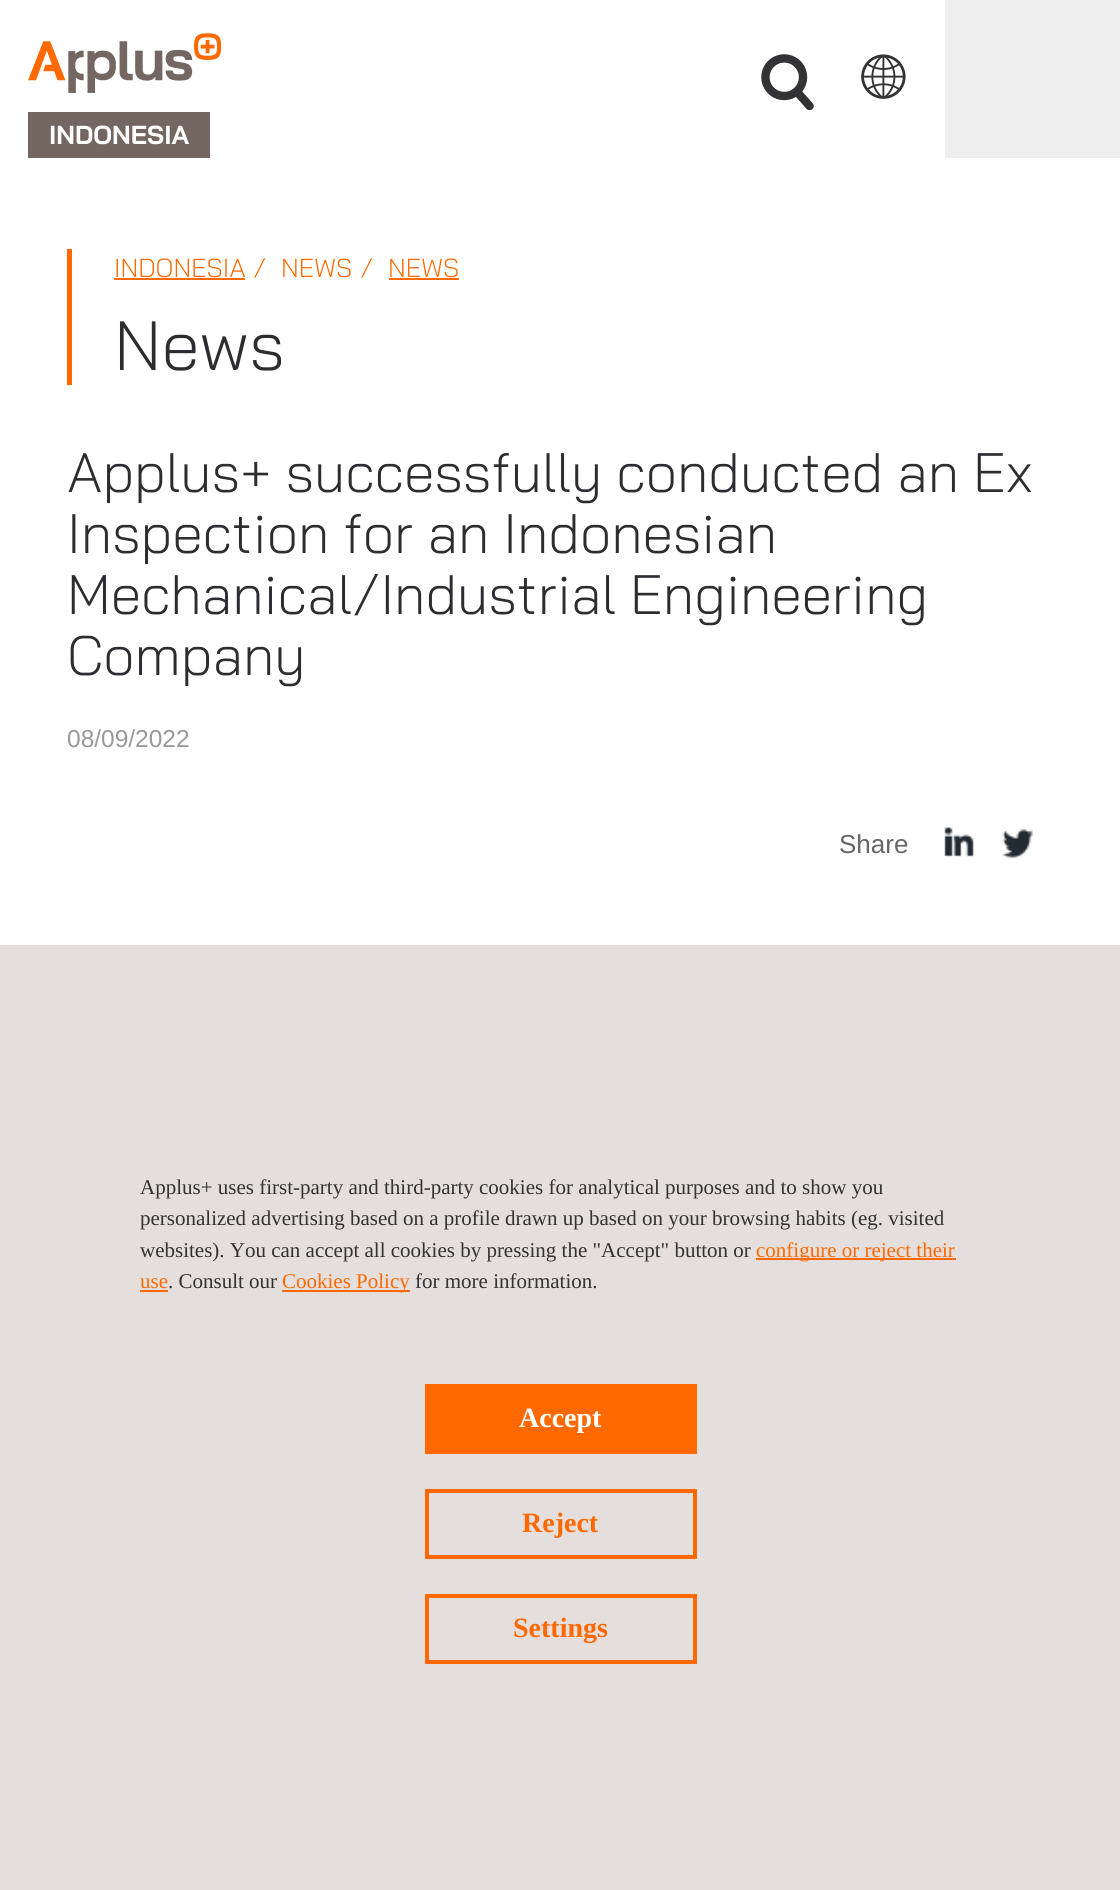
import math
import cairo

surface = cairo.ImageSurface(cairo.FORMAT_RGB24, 1120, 1890)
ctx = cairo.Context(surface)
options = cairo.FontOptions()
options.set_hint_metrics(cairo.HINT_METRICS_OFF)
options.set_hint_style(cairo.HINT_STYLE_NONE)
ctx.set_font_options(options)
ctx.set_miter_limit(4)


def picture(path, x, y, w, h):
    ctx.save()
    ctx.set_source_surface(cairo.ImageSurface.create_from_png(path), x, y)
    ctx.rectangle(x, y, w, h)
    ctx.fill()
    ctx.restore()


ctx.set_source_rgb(1, 1, 1)
ctx.paint()
picture("img1.png", 761, 54, 53, 56)
picture("img2.png", 861, 54, 45, 45)
ctx.set_source_rgb(0.933, 0.933, 0.933)
ctx.rectangle(945, 0, 175, 158)
ctx.fill()
picture("img3.png", 28, 33, 193, 60)
ctx.set_source_rgb(0.455, 0.4, 0.376)
ctx.rectangle(28, 112, 182, 46)
ctx.fill()
ctx.select_font_face("Bai Jamjuree", cairo.FONT_SLANT_NORMAL, cairo.FONT_WEIGHT_BOLD)
ctx.set_font_size(26)
ctx.set_source_rgb(1, 1, 1)
ctx.move_to(49, 144)
ctx.show_text("INDONESIA")
ctx.set_source_rgb(1, 0.412, 0)
ctx.rectangle(67, 249, 5, 136)
ctx.fill()
ctx.select_font_face("Bai Jamjuree Light")
ctx.move_to(114, 277)
ctx.show_text("INDONESIA")
ctx.rectangle(114, 278, 131, 2)
ctx.fill()
ctx.move_to(253, 277)
ctx.show_text("/")
ctx.move_to(281, 277)
ctx.show_text("NEWS")
ctx.move_to(360, 277)
ctx.show_text("/")
ctx.move_to(388, 277)
ctx.show_text("NEWS")
ctx.rectangle(389, 278, 70, 2)
ctx.fill()
ctx.set_font_size(69.5)
ctx.set_source_rgb(0.173, 0.173, 0.192)
ctx.move_to(114, 370)
ctx.show_text("News")
ctx.set_font_size(55.5)
ctx.move_to(67, 492)
ctx.show_text("Applus+ successfully conducted an Ex")
ctx.move_to(67, 553)
ctx.show_text("Inspection for an Indonesian")
ctx.move_to(67, 614)
ctx.show_text("Mechanical/Industrial Engineering")
ctx.move_to(67, 675)
ctx.show_text("Company")
ctx.select_font_face("Liberation Sans")
ctx.set_font_size(24.5)
ctx.set_source_rgb(0.6, 0.6, 0.6)
ctx.move_to(67, 747)
ctx.show_text("08/09/2022")
ctx.set_font_size(26)
ctx.set_source_rgb(0.4, 0.4, 0.4)
ctx.move_to(839, 853)
ctx.show_text("Share")
picture("img4.png", 944, 827, 30, 30)
picture("img5.png", 1002, 829, 32, 29)
ctx.set_source_rgb(0.894, 0.871, 0.863)
ctx.rectangle(0, 945, 1120, 945)
ctx.fill()
ctx.select_font_face("Liberation Serif")
ctx.set_font_size(21)
ctx.set_source_rgb(0.2, 0.2, 0.2)
ctx.move_to(140, 1194)
ctx.show_text("Applus+ uses first-party and third-party cookies for analytical purposes and to show you")
ctx.move_to(140, 1225)
ctx.show_text("personalized advertising based on a profile drawn up based on your browsing habits (eg. visited")
ctx.move_to(140, 1257)
ctx.show_text("websites). You can accept all cookies by pressing the \"Accept\" button or")
ctx.set_source_rgb(0.992, 0.412, 0)
ctx.rectangle(756, 1258, 200, 2)
ctx.fill()
ctx.set_source_rgb(1, 0.412, 0)
ctx.move_to(756, 1257)
ctx.show_text("configure or reject their")
ctx.move_to(140, 1288)
ctx.show_text("use")
ctx.set_source_rgb(0.992, 0.412, 0)
ctx.rectangle(140, 1290, 28, 2)
ctx.fill()
ctx.set_source_rgb(0.2, 0.2, 0.2)
ctx.move_to(168, 1288)
ctx.show_text(". Consult our")
ctx.set_source_rgb(0.992, 0.412, 0)
ctx.rectangle(282, 1290, 128, 2)
ctx.fill()
ctx.set_source_rgb(1, 0.412, 0)
ctx.move_to(282, 1288)
ctx.show_text("Cookies Policy")
ctx.set_source_rgb(0.2, 0.2, 0.2)
ctx.move_to(415, 1288)
ctx.show_text("for more information.")
ctx.set_source_rgb(1, 0.412, 0)
ctx.rectangle(425, 1384, 272, 70)
ctx.fill()
ctx.select_font_face("Liberation Serif", cairo.FONT_SLANT_NORMAL, cairo.FONT_WEIGHT_BOLD)
ctx.set_font_size(28)
ctx.set_source_rgb(1, 1, 1)
ctx.move_to(519, 1427)
ctx.show_text("Accept")
ctx.rectangle(427, 1491, 268, 66)
ctx.set_source_rgb(1, 0.412, 0)
ctx.set_line_width(4)
ctx.stroke()
ctx.move_to(522, 1532)
ctx.show_text("Reject")
ctx.rectangle(427, 1596, 268, 66)
ctx.stroke()
ctx.move_to(513, 1637)
ctx.show_text("Settings")
surface.write_to_png("page.png")
